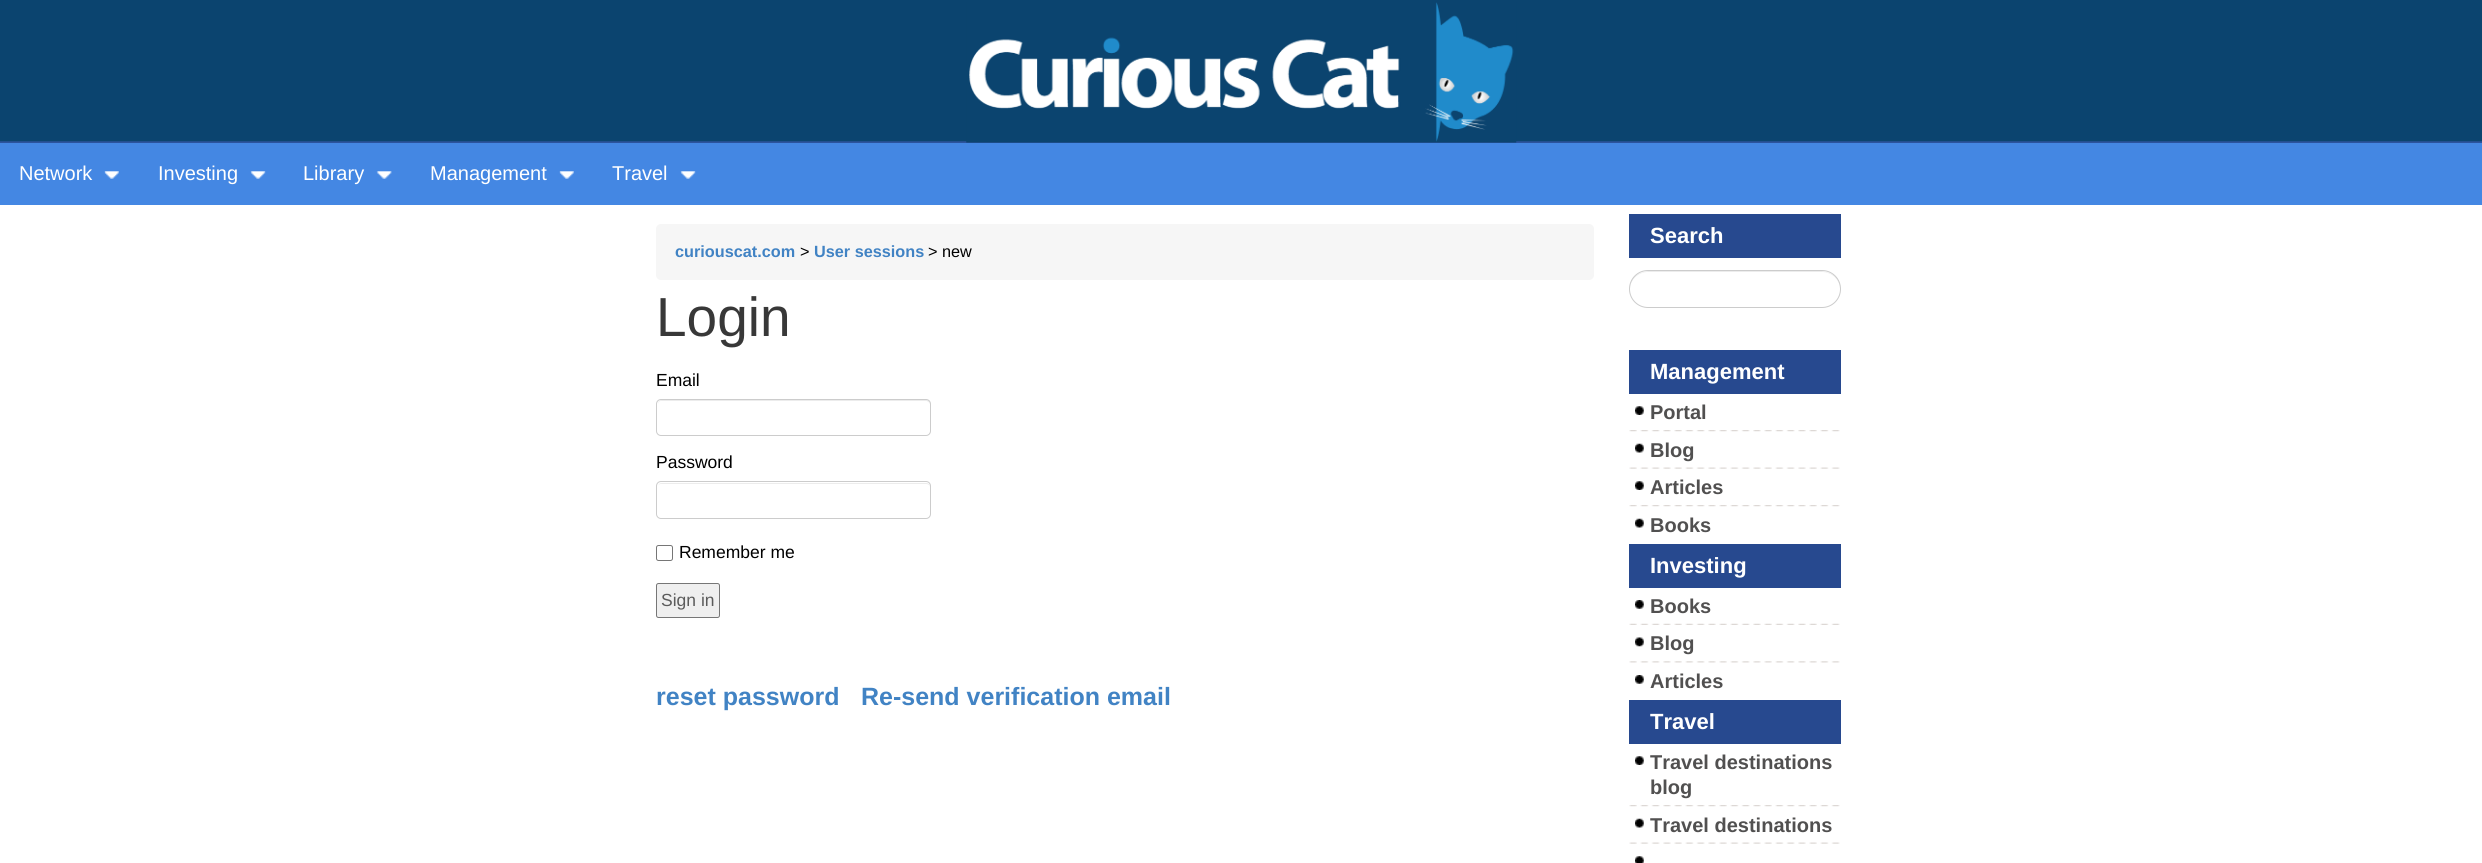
import math
import cairo

surface = cairo.ImageSurface(cairo.FORMAT_RGB24, 2482, 863)
ctx = cairo.Context(surface)
options = cairo.FontOptions()
options.set_hint_metrics(cairo.HINT_METRICS_OFF)
options.set_hint_style(cairo.HINT_STYLE_NONE)
ctx.set_font_options(options)
ctx.set_miter_limit(4)


def round_rect(x, y, w, h, r):
    ctx.new_sub_path()
    for i, (u, v) in enumerate([(x + w - r, y + h - r), (x + r, y + h - r), (x + r, y + r), (x + w - r, y + r)]):
        ctx.arc(u, v, r, i * math.pi / 2, (i + 1) * math.pi / 2)
    ctx.close_path()


def picture(path, x, y, w, h):
    ctx.save()
    ctx.set_source_surface(cairo.ImageSurface.create_from_png(path), x, y)
    ctx.rectangle(x, y, w, h)
    ctx.fill()
    ctx.restore()


ctx.set_source_rgb(1, 1, 1)
ctx.paint()
picture("img1.png", 0, 0, 2482, 143)
picture("img2.png", 966, 2, 551, 141)
ctx.set_source_rgb(0.267, 0.529, 0.89)
ctx.rectangle(0, 143, 2482, 62)
ctx.fill()
ctx.select_font_face("Liberation Sans")
ctx.set_font_size(20)
ctx.set_source_rgb(1, 1, 1)
ctx.move_to(19, 180)
ctx.show_text("Network")
picture("img3.png", 104, 171, 15, 8)
ctx.move_to(158, 180)
ctx.show_text("Investing")
picture("img4.png", 250, 171, 16, 8)
ctx.move_to(303, 180)
ctx.show_text("Library")
picture("img5.png", 376, 171, 16, 8)
ctx.move_to(430, 180)
ctx.show_text("Management")
picture("img3.png", 559, 171, 15, 8)
ctx.move_to(612, 180)
ctx.show_text("Travel")
picture("img6.png", 680, 171, 16, 8)
ctx.set_source_rgb(0.961, 0.961, 0.961)
round_rect(656, 224, 938, 56, 5)
ctx.fill()
ctx.select_font_face("Liberation Sans", cairo.FONT_SLANT_NORMAL, cairo.FONT_WEIGHT_BOLD)
ctx.set_font_size(16.25)
ctx.set_source_rgb(0.255, 0.514, 0.769)
ctx.move_to(675, 257)
ctx.show_text("curiouscat.com")
ctx.select_font_face("Liberation Sans")
ctx.set_source_rgb(0, 0, 0)
ctx.move_to(800, 257)
ctx.show_text(">")
ctx.select_font_face("Liberation Sans", cairo.FONT_SLANT_NORMAL, cairo.FONT_WEIGHT_BOLD)
ctx.set_source_rgb(0.255, 0.514, 0.769)
ctx.move_to(814, 257)
ctx.show_text("User sessions")
ctx.select_font_face("Liberation Sans")
ctx.set_source_rgb(0, 0, 0)
ctx.move_to(928, 257)
ctx.show_text("> new")
ctx.set_font_size(55)
ctx.set_source_rgb(0.22, 0.22, 0.22)
ctx.move_to(656, 336)
ctx.show_text("Login")
ctx.set_font_size(17.5)
ctx.set_source_rgb(0, 0, 0)
ctx.move_to(656, 386)
ctx.show_text("Email")
ctx.set_source_rgb(0.925, 0.925, 0.925)
ctx.new_path()
ctx.move_to(661, 401)
ctx.line_to(926, 401)
ctx.curve_to(928, 401, 930, 403, 930, 405)
ctx.curve_to(930, 402, 929, 400, 926, 400)
ctx.line_to(662, 400)
ctx.curve_to(659, 400, 658, 402, 658, 405)
ctx.curve_to(658, 403, 659, 401, 661, 401)
ctx.close_path()
ctx.fill()
round_rect(656.5, 399.5, 274, 36, 4.5)
ctx.set_source_rgb(0.8, 0.8, 0.8)
ctx.set_line_width(1)
ctx.stroke()
ctx.set_source_rgb(0, 0, 0)
ctx.move_to(656, 468)
ctx.show_text("Password")
ctx.set_source_rgb(0.925, 0.925, 0.925)
ctx.new_path()
ctx.move_to(661, 484)
ctx.line_to(926, 484)
ctx.curve_to(928, 484, 930, 485, 930, 488)
ctx.curve_to(930, 485, 929, 483, 926, 483)
ctx.line_to(662, 483)
ctx.curve_to(659, 483, 658, 485, 658, 488)
ctx.curve_to(658, 485, 659, 484, 661, 484)
ctx.close_path()
ctx.fill()
round_rect(656.5, 481.5, 274, 37, 4.5)
ctx.set_source_rgb(0.8, 0.8, 0.8)
ctx.stroke()
round_rect(656.5, 545.5, 16, 15, 2)
ctx.set_source_rgb(0.463, 0.463, 0.463)
ctx.stroke()
ctx.set_source_rgb(0, 0, 0)
ctx.move_to(679, 558)
ctx.show_text("Remember me")
ctx.set_source_rgb(0.937, 0.937, 0.937)
round_rect(656.5, 583.5, 63, 34, 2)
ctx.fill_preserve()
ctx.set_source_rgb(0.463, 0.463, 0.463)
ctx.stroke()
ctx.set_source_rgb(0.357, 0.357, 0.357)
ctx.move_to(661, 606)
ctx.show_text("Sign in")
ctx.select_font_face("Liberation Sans", cairo.FONT_SLANT_NORMAL, cairo.FONT_WEIGHT_BOLD)
ctx.set_font_size(25)
ctx.set_source_rgb(0.255, 0.514, 0.769)
ctx.move_to(656, 705)
ctx.show_text("reset password")
ctx.move_to(861, 705)
ctx.show_text("Re-send verification email")
ctx.set_source_rgb(0.153, 0.286, 0.561)
ctx.rectangle(1629, 214, 212, 44)
ctx.fill()
ctx.set_font_size(22)
ctx.set_source_rgb(1, 1, 1)
ctx.move_to(1650, 243)
ctx.show_text("Search")
ctx.set_source_rgb(0.925, 0.925, 0.925)
ctx.new_path()
ctx.move_to(1648, 272)
ctx.line_to(1822, 272)
ctx.curve_to(1832, 272, 1840, 280, 1840, 289)
ctx.curve_to(1841, 265, 1806, 271, 1793, 271)
ctx.line_to(1677, 271)
ctx.curve_to(1664, 271, 1629, 265, 1630, 289)
ctx.curve_to(1630, 280, 1638, 272, 1648, 272)
ctx.close_path()
ctx.fill()
round_rect(1629.5, 270.5, 211, 37, 18.5)
ctx.set_source_rgb(0.8, 0.8, 0.8)
ctx.stroke()
ctx.set_source_rgb(0.153, 0.286, 0.561)
ctx.rectangle(1629, 350, 212, 44)
ctx.fill()
ctx.set_source_rgb(1, 1, 1)
ctx.move_to(1650, 379)
ctx.show_text("Management")
picture("img7.png", 1635, 406, 9, 9)
picture("img8.png", 1629, 430, 211, 2)
ctx.set_font_size(20)
ctx.set_source_rgb(0.318, 0.314, 0.314)
ctx.move_to(1650, 419)
ctx.show_text("Portal")
picture("img9.png", 1635, 443, 9, 10)
picture("img10.png", 1629, 467, 211, 2)
ctx.move_to(1650, 457)
ctx.show_text("Blog")
picture("img7.png", 1635, 481, 9, 9)
picture("img8.png", 1629, 505, 211, 2)
ctx.move_to(1650, 494)
ctx.show_text("Articles")
picture("img9.png", 1635, 518, 9, 10)
ctx.move_to(1650, 532)
ctx.show_text("Books")
ctx.set_source_rgb(0.153, 0.286, 0.561)
ctx.rectangle(1629, 544, 212, 44)
ctx.fill()
ctx.set_font_size(22)
ctx.set_source_rgb(1, 1, 1)
ctx.move_to(1650, 573)
ctx.show_text("Investing")
picture("img11.png", 1635, 600, 9, 9)
picture("img12.png", 1629, 623, 211, 2)
ctx.set_font_size(20)
ctx.set_source_rgb(0.318, 0.314, 0.314)
ctx.move_to(1650, 613)
ctx.show_text("Books")
picture("img13.png", 1635, 637, 9, 10)
picture("img14.png", 1629, 661, 211, 2)
ctx.move_to(1650, 650)
ctx.show_text("Blog")
picture("img11.png", 1635, 675, 9, 9)
ctx.move_to(1650, 688)
ctx.show_text("Articles")
ctx.set_source_rgb(0.153, 0.286, 0.561)
ctx.rectangle(1629, 700, 212, 44)
ctx.fill()
ctx.set_font_size(22)
ctx.set_source_rgb(1, 1, 1)
ctx.move_to(1650, 729)
ctx.show_text("Travel")
picture("img7.png", 1635, 756, 9, 9)
picture("img8.png", 1629, 805, 211, 2)
ctx.set_font_size(20)
ctx.set_source_rgb(0.318, 0.314, 0.314)
ctx.move_to(1650, 769)
ctx.show_text("Travel destinations")
ctx.move_to(1650, 794)
ctx.show_text("blog")
picture("img9.png", 1635, 818, 9, 10)
picture("img10.png", 1629, 842, 211, 2)
ctx.move_to(1650, 832)
ctx.show_text("Travel destinations")
picture("img15.png", 1635, 856, 9, 7)
surface.write_to_png("page.png")
